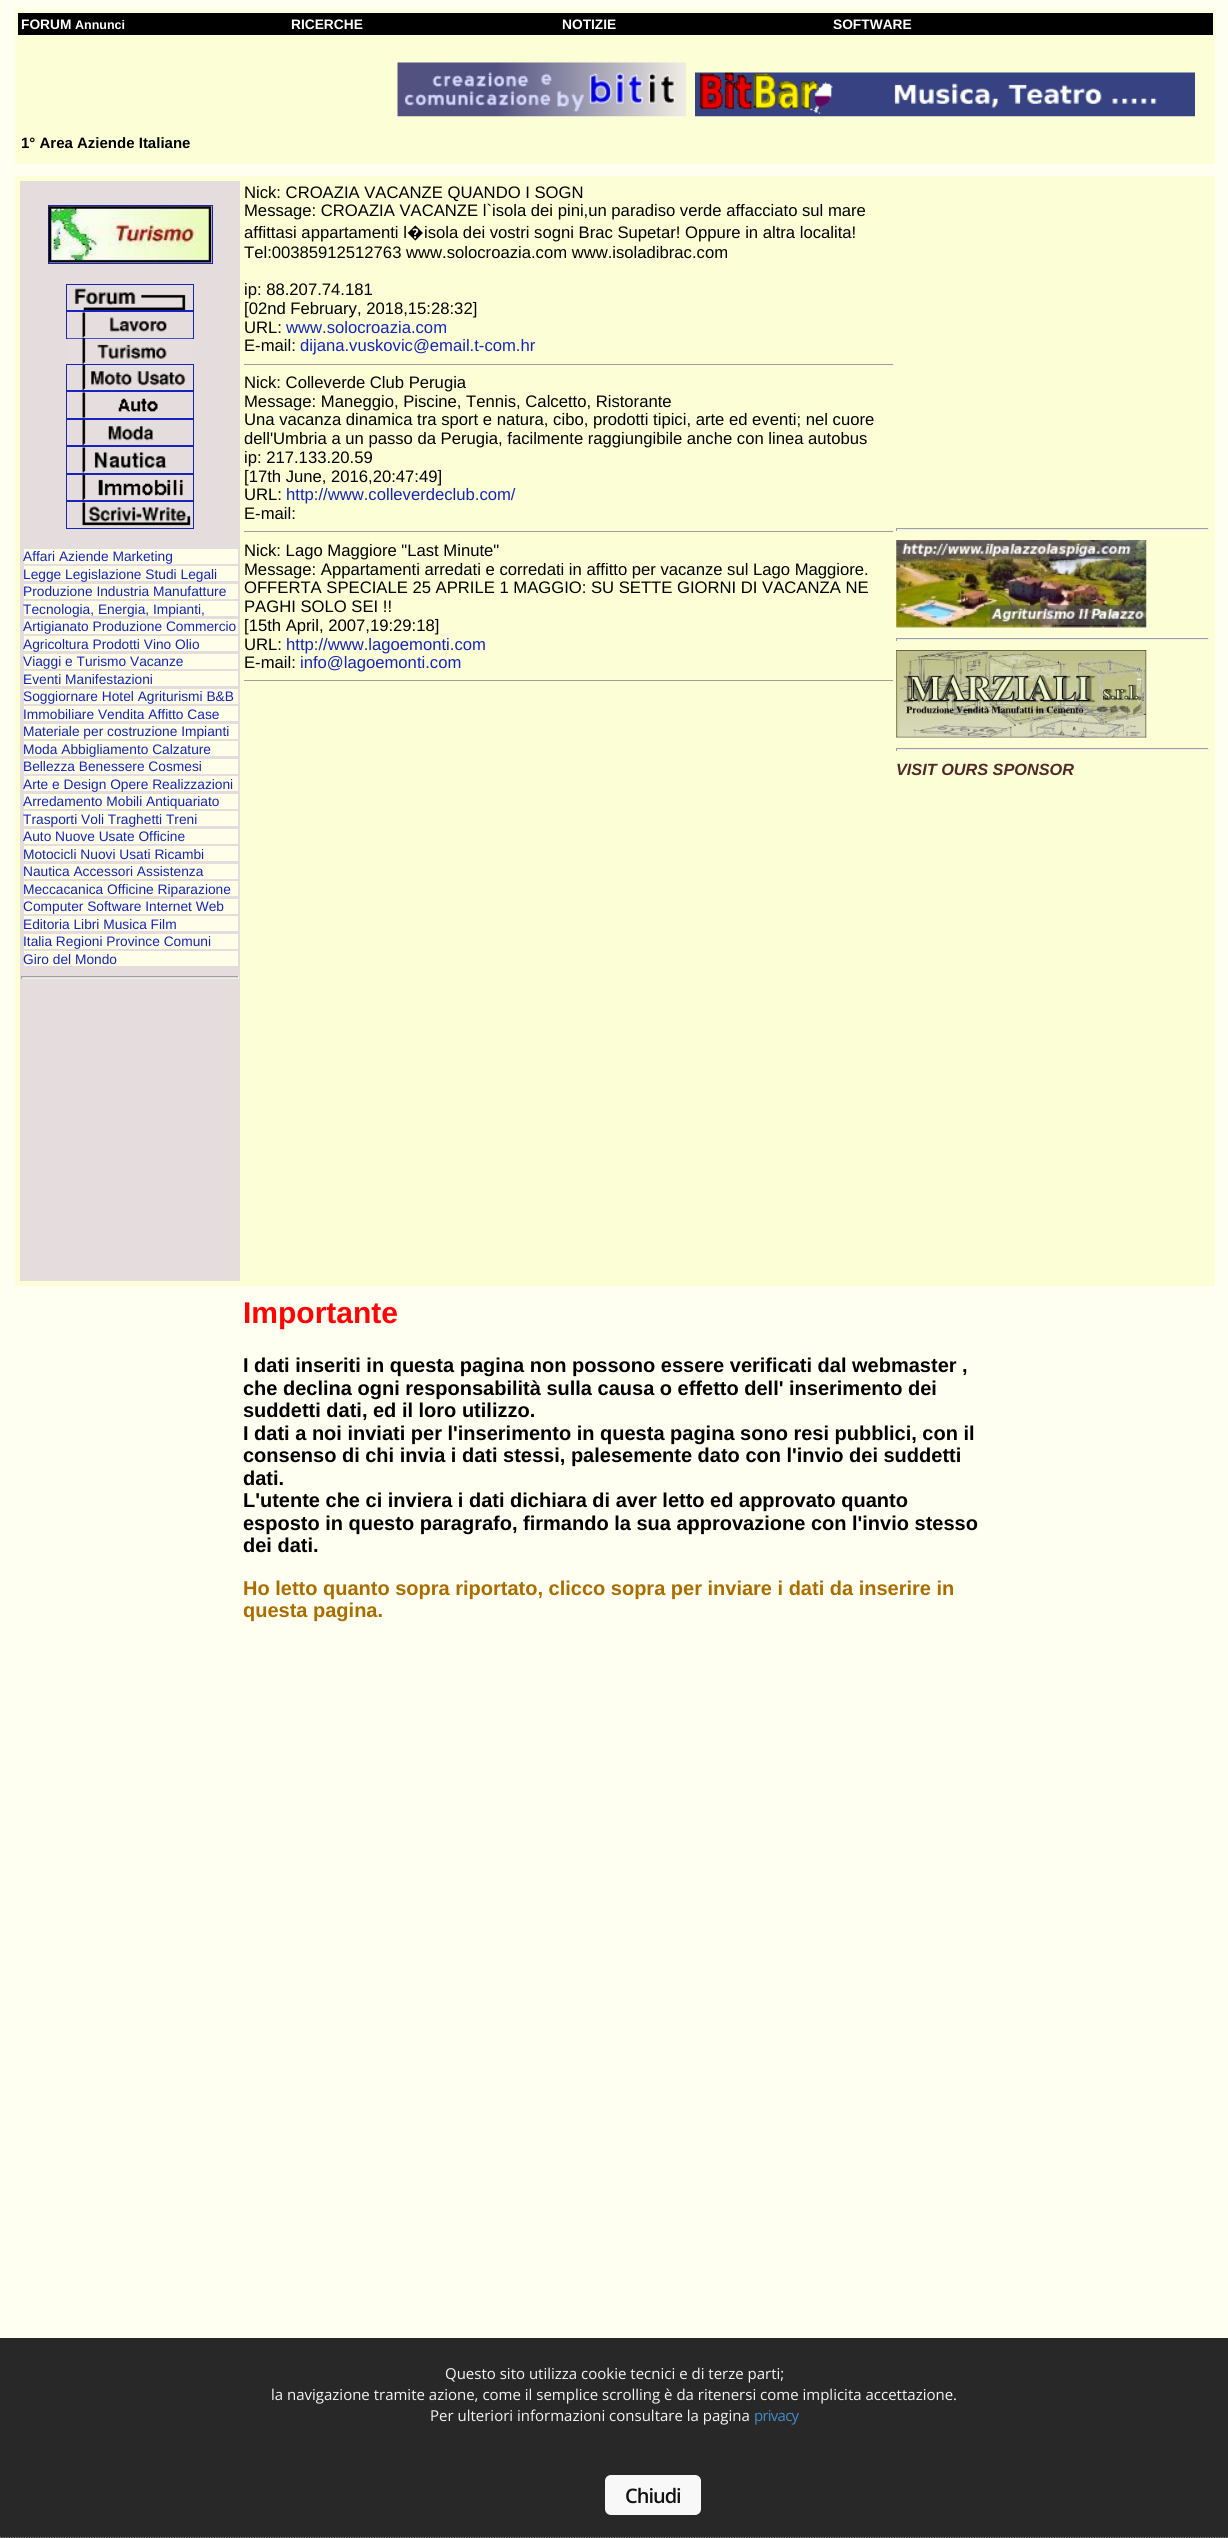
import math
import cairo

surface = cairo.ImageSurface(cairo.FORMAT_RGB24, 1228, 2538)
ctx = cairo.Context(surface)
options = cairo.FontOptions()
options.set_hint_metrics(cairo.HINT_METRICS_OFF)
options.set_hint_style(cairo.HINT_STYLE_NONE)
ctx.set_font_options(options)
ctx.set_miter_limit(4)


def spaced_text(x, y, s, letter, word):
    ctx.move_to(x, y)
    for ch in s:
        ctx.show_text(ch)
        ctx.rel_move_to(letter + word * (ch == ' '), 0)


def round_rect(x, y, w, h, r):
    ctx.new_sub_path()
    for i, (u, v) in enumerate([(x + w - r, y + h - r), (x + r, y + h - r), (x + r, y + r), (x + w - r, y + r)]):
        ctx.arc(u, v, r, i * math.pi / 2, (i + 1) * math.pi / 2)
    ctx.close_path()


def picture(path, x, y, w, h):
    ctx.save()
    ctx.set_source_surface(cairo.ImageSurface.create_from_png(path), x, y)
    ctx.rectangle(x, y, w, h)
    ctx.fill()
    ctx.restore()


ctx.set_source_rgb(0.996, 1, 0.941)
ctx.paint()
ctx.set_source_rgb(0.988, 1, 0.835)
ctx.rectangle(15, 10, 1200, 154)
ctx.fill()
ctx.set_source_rgb(0, 0, 0)
ctx.rectangle(18, 13, 1195, 22)
ctx.fill()
ctx.select_font_face("Liberation Sans", cairo.FONT_SLANT_NORMAL, cairo.FONT_WEIGHT_BOLD)
ctx.set_font_size(13.75)
ctx.set_source_rgb(1, 1, 1)
ctx.move_to(21, 29)
ctx.show_text("FORUM")
ctx.set_font_size(12.5)
ctx.move_to(75, 29)
ctx.show_text("Annunci")
ctx.set_font_size(13.75)
ctx.move_to(291, 29)
ctx.show_text("RICERCHE")
ctx.move_to(562, 29)
ctx.show_text("NOTIZIE")
ctx.move_to(833, 29)
ctx.show_text("SOFTWARE")
picture("img1.png", 397, 62, 290, 55)
picture("img2.png", 695, 72, 500, 45)
ctx.set_font_size(15)
ctx.set_source_rgb(0, 0, 0)
ctx.move_to(21, 148)
ctx.show_text("1° Area Aziende Italiane")
ctx.set_source_rgb(0.988, 1, 0.835)
ctx.rectangle(15, 176, 1200, 1110)
ctx.fill()
ctx.select_font_face("Liberation Sans")
ctx.set_font_size(16.65)
ctx.set_source_rgb(0, 0, 0)
ctx.move_to(244, 198)
ctx.show_text("Nick: CROAZIA VACANZE QUANDO I SOGN")
ctx.move_to(244, 216)
ctx.show_text("Message: CROAZIA VACANZE l`isola dei pini,un paradiso verde affacciato sul mare")
ctx.move_to(244, 238)
ctx.show_text("affittasi appartamenti l")
ctx.select_font_face("Noto Sans")
ctx.move_to(407, 238)
ctx.show_text("�")
ctx.select_font_face("Liberation Sans")
ctx.move_to(424, 238)
ctx.show_text("isola dei vostri sogni Brac Supetar! Oppure in altra localita!")
ctx.move_to(244, 258)
ctx.show_text("Tel:00385912512763 www.solocroazia.com www.isoladibrac.com")
ctx.move_to(244, 295)
ctx.show_text("ip: 88.207.74.181")
ctx.move_to(244, 314)
ctx.show_text("[02nd February, 2018,15:28:32]")
ctx.move_to(244, 333)
ctx.show_text("URL:")
ctx.set_source_rgb(0.082, 0.141, 0.737)
ctx.move_to(286, 333)
ctx.show_text("www.solocroazia.com")
ctx.set_source_rgb(0, 0, 0)
ctx.move_to(244, 351)
ctx.show_text("E-mail:")
ctx.set_source_rgb(0.082, 0.141, 0.737)
ctx.move_to(300, 351)
ctx.show_text("dijana.vuskovic@email.t-com.hr")
ctx.set_source_rgb(0.624, 0.624, 0.624)
ctx.rectangle(244, 364, 650, 1)
ctx.fill()
ctx.set_source_rgb(0.933, 0.933, 0.933)
ctx.rectangle(893, 364, 1, 1)
ctx.fill()
ctx.set_source_rgb(0, 0, 0)
ctx.move_to(244, 388)
ctx.show_text("Nick: Colleverde Club Perugia")
ctx.move_to(244, 407)
ctx.show_text("Message: Maneggio, Piscine, Tennis, Calcetto, Ristorante")
ctx.move_to(244, 425)
ctx.show_text("Una vacanza dinamica tra sport e natura, cibo, prodotti tipici, arte ed eventi; nel cuore")
ctx.move_to(244, 444)
ctx.show_text("dell'Umbria a un passo da Perugia, facilmente raggiungibile anche con linea autobus")
ctx.move_to(244, 463)
ctx.show_text("ip: 217.133.20.59")
ctx.move_to(244, 482)
ctx.show_text("[17th June, 2016,20:47:49]")
ctx.move_to(244, 500)
ctx.show_text("URL:")
ctx.set_source_rgb(0.082, 0.141, 0.737)
ctx.move_to(286, 500)
ctx.show_text("http://www.colleverdeclub.com/")
ctx.set_source_rgb(0, 0, 0)
ctx.move_to(244, 519)
ctx.show_text("E-mail:")
ctx.set_source_rgb(0.624, 0.624, 0.624)
ctx.rectangle(244, 531, 650, 1)
ctx.fill()
ctx.set_source_rgb(0.933, 0.933, 0.933)
ctx.rectangle(893, 531, 1, 1)
ctx.fill()
ctx.set_source_rgb(0, 0, 0)
ctx.move_to(244, 556)
ctx.show_text("Nick: Lago Maggiore \"Last Minute\"")
ctx.move_to(244, 575)
ctx.show_text("Message: Appartamenti arredati e corredati in affitto per vacanze sul Lago Maggiore.")
ctx.move_to(244, 593)
ctx.show_text("OFFERTA SPECIALE 25 APRILE 1 MAGGIO: SU SETTE GIORNI DI VACANZA NE")
ctx.move_to(244, 612)
ctx.show_text("PAGHI SOLO SEI !!")
ctx.move_to(244, 631)
ctx.show_text("[15th April, 2007,19:29:18]")
ctx.move_to(244, 650)
ctx.show_text("URL:")
ctx.set_source_rgb(0.082, 0.141, 0.737)
ctx.move_to(286, 650)
ctx.show_text("http://www.lagoemonti.com")
ctx.set_source_rgb(0, 0, 0)
ctx.move_to(244, 668)
ctx.show_text("E-mail:")
ctx.set_source_rgb(0.082, 0.141, 0.737)
ctx.move_to(300, 668)
ctx.show_text("info@lagoemonti.com")
ctx.set_source_rgb(0.624, 0.624, 0.624)
ctx.rectangle(244, 680, 650, 1)
ctx.fill()
ctx.set_source_rgb(0.933, 0.933, 0.933)
ctx.rectangle(893, 680, 1, 1)
ctx.fill()
ctx.set_source_rgb(0.898, 0.867, 0.867)
ctx.rectangle(20, 181, 220, 1100)
ctx.fill()
ctx.rectangle(48.5, 205.5, 164, 58)
ctx.set_source_rgb(0.082, 0.141, 0.737)
ctx.set_line_width(1)
ctx.stroke()
picture("img3.png", 48, 206, 164, 57)
ctx.rectangle(66.5, 284.5, 127, 26)
ctx.stroke()
picture("img4.png", 74, 288, 112, 22)
ctx.rectangle(66.5, 311.5, 127, 27)
ctx.stroke()
picture("img5.png", 82, 312, 85, 26)
picture("img6.png", 67, 338, 126, 26)
ctx.rectangle(66.5, 364.5, 127, 26)
ctx.stroke()
picture("img7.png", 82, 365, 104, 25)
ctx.rectangle(66.5, 391.5, 127, 27)
ctx.stroke()
picture("img8.png", 82, 392, 76, 26)
ctx.rectangle(66.5, 419.5, 127, 26)
ctx.stroke()
picture("img9.png", 82, 420, 72, 25)
ctx.rectangle(66.5, 446.5, 127, 27)
ctx.stroke()
picture("img10.png", 82, 447, 85, 26)
ctx.rectangle(66.5, 474.5, 127, 26)
ctx.stroke()
picture("img11.png", 82, 475, 101, 25)
ctx.rectangle(66.5, 501.5, 127, 27)
ctx.stroke()
picture("img12.png", 82, 502, 109, 24)
ctx.set_source_rgb(1, 1, 0.914)
ctx.rectangle(24, 549, 214, 15)
ctx.fill()
ctx.set_font_size(13.75)
ctx.set_source_rgb(0.082, 0.141, 0.737)
ctx.move_to(23, 561)
ctx.show_text("Affari Aziende Marketing")
ctx.set_source_rgb(1, 1, 0.914)
ctx.rectangle(24, 566, 214, 15)
ctx.fill()
ctx.set_source_rgb(0.082, 0.141, 0.737)
ctx.move_to(23, 579)
ctx.show_text("Legge Legislazione Studi Legali")
ctx.set_source_rgb(1, 1, 0.914)
ctx.rectangle(24, 584, 214, 15)
ctx.fill()
ctx.set_source_rgb(0.082, 0.141, 0.737)
ctx.move_to(23, 596)
ctx.show_text("Produzione Industria Manufatture")
ctx.set_source_rgb(1, 1, 0.914)
ctx.rectangle(24, 601, 214, 15)
ctx.fill()
ctx.set_source_rgb(0.082, 0.141, 0.737)
ctx.move_to(23, 614)
ctx.show_text("Tecnologia, Energia, Impianti,")
ctx.set_source_rgb(1, 1, 0.914)
ctx.rectangle(24, 619, 214, 15)
ctx.fill()
ctx.set_source_rgb(0.082, 0.141, 0.737)
ctx.move_to(23, 631)
ctx.show_text("Artigianato Produzione Commercio")
ctx.set_source_rgb(1, 1, 0.914)
ctx.rectangle(24, 636, 214, 15)
ctx.fill()
ctx.set_source_rgb(0.082, 0.141, 0.737)
ctx.move_to(23, 649)
ctx.show_text("Agricoltura Prodotti Vino Olio")
ctx.set_source_rgb(1, 1, 0.914)
ctx.rectangle(24, 654, 214, 15)
ctx.fill()
ctx.set_source_rgb(0.082, 0.141, 0.737)
ctx.move_to(23, 666)
ctx.show_text("Viaggi e Turismo Vacanze")
ctx.set_source_rgb(1, 1, 0.914)
ctx.rectangle(24, 671, 214, 15)
ctx.fill()
ctx.set_source_rgb(0.082, 0.141, 0.737)
ctx.move_to(23, 684)
ctx.show_text("Eventi Manifestazioni")
ctx.set_source_rgb(1, 1, 0.914)
ctx.rectangle(24, 689, 214, 15)
ctx.fill()
ctx.set_source_rgb(0.082, 0.141, 0.737)
ctx.move_to(23, 701)
ctx.show_text("Soggiornare Hotel Agriturismi B&B")
ctx.set_source_rgb(1, 1, 0.914)
ctx.rectangle(24, 706, 214, 15)
ctx.fill()
ctx.set_source_rgb(0.082, 0.141, 0.737)
ctx.move_to(23, 719)
ctx.show_text("Immobiliare Vendita Affitto Case")
ctx.set_source_rgb(1, 1, 0.914)
ctx.rectangle(24, 724, 214, 15)
ctx.fill()
ctx.set_source_rgb(0.082, 0.141, 0.737)
ctx.move_to(23, 736)
ctx.show_text("Materiale per costruzione Impianti")
ctx.set_source_rgb(1, 1, 0.914)
ctx.rectangle(24, 741, 214, 15)
ctx.fill()
ctx.set_source_rgb(0.082, 0.141, 0.737)
ctx.move_to(23, 754)
ctx.show_text("Moda Abbigliamento Calzature")
ctx.set_source_rgb(1, 1, 0.914)
ctx.rectangle(24, 759, 214, 15)
ctx.fill()
ctx.set_source_rgb(0.082, 0.141, 0.737)
ctx.move_to(23, 771)
ctx.show_text("Bellezza Benessere Cosmesi")
ctx.set_source_rgb(1, 1, 0.914)
ctx.rectangle(24, 776, 214, 15)
ctx.fill()
ctx.set_source_rgb(0.082, 0.141, 0.737)
ctx.move_to(23, 789)
ctx.show_text("Arte e Design Opere Realizzazioni")
ctx.set_source_rgb(1, 1, 0.914)
ctx.rectangle(24, 794, 214, 15)
ctx.fill()
ctx.set_source_rgb(0.082, 0.141, 0.737)
ctx.move_to(23, 806)
ctx.show_text("Arredamento Mobili Antiquariato")
ctx.set_source_rgb(1, 1, 0.914)
ctx.rectangle(24, 811, 214, 15)
ctx.fill()
ctx.set_source_rgb(0.082, 0.141, 0.737)
ctx.move_to(23, 824)
ctx.show_text("Trasporti Voli Traghetti Treni")
ctx.set_source_rgb(1, 1, 0.914)
ctx.rectangle(24, 829, 214, 15)
ctx.fill()
ctx.set_source_rgb(0.082, 0.141, 0.737)
ctx.move_to(23, 841)
ctx.show_text("Auto Nuove Usate Officine")
ctx.set_source_rgb(1, 1, 0.914)
ctx.rectangle(24, 846, 214, 15)
ctx.fill()
ctx.set_source_rgb(0.082, 0.141, 0.737)
ctx.move_to(23, 859)
ctx.show_text("Motocicli Nuovi Usati Ricambi")
ctx.set_source_rgb(1, 1, 0.914)
ctx.rectangle(24, 864, 214, 15)
ctx.fill()
ctx.set_source_rgb(0.082, 0.141, 0.737)
ctx.move_to(23, 876)
ctx.show_text("Nautica Accessori Assistenza")
ctx.set_source_rgb(1, 1, 0.914)
ctx.rectangle(24, 881, 214, 15)
ctx.fill()
ctx.set_source_rgb(0.082, 0.141, 0.737)
ctx.move_to(23, 894)
ctx.show_text("Meccacanica Officine Riparazione")
ctx.set_source_rgb(1, 1, 0.914)
ctx.rectangle(24, 899, 214, 15)
ctx.fill()
ctx.set_source_rgb(0.082, 0.141, 0.737)
ctx.move_to(23, 911)
ctx.show_text("Computer Software Internet Web")
ctx.set_source_rgb(1, 1, 0.914)
ctx.rectangle(24, 916, 214, 15)
ctx.fill()
ctx.set_source_rgb(0.082, 0.141, 0.737)
ctx.move_to(23, 929)
ctx.show_text("Editoria Libri Musica Film")
ctx.set_source_rgb(1, 1, 0.914)
ctx.rectangle(24, 934, 214, 15)
ctx.fill()
ctx.set_source_rgb(0.082, 0.141, 0.737)
ctx.move_to(23, 946)
ctx.show_text("Italia Regioni Province Comuni")
ctx.set_source_rgb(1, 1, 0.914)
ctx.rectangle(24, 951, 214, 15)
ctx.fill()
ctx.set_source_rgb(0.082, 0.141, 0.737)
ctx.move_to(23, 964)
ctx.show_text("Giro del Mondo")
ctx.set_source_rgb(0.624, 0.624, 0.624)
ctx.rectangle(21, 976, 218, 1)
ctx.fill()
ctx.set_source_rgb(0.933, 0.933, 0.933)
ctx.rectangle(238, 976, 1, 3)
ctx.fill()
ctx.rectangle(21, 978, 218, 1)
ctx.fill()
ctx.set_source_rgb(0.624, 0.624, 0.624)
ctx.rectangle(21, 976, 1, 3)
ctx.fill()
ctx.rectangle(896, 528, 313, 1)
ctx.fill()
ctx.set_source_rgb(0.933, 0.933, 0.933)
ctx.rectangle(1208, 528, 1, 3)
ctx.fill()
ctx.rectangle(896, 529, 313, 1)
ctx.fill()
ctx.set_source_rgb(0.624, 0.624, 0.624)
ctx.rectangle(896, 528, 1, 3)
ctx.fill()
picture("img13.png", 896, 540, 251, 88)
ctx.rectangle(896, 638, 313, 1)
ctx.fill()
ctx.set_source_rgb(0.933, 0.933, 0.933)
ctx.rectangle(1208, 638, 1, 3)
ctx.fill()
ctx.rectangle(896, 639, 313, 1)
ctx.fill()
ctx.set_source_rgb(0.624, 0.624, 0.624)
ctx.rectangle(896, 638, 1, 3)
ctx.fill()
picture("img14.png", 896, 650, 251, 88)
ctx.rectangle(896, 748, 313, 1)
ctx.fill()
ctx.set_source_rgb(0.933, 0.933, 0.933)
ctx.rectangle(1208, 748, 1, 3)
ctx.fill()
ctx.rectangle(896, 749, 313, 1)
ctx.fill()
ctx.set_source_rgb(0.624, 0.624, 0.624)
ctx.rectangle(896, 748, 1, 3)
ctx.fill()
ctx.select_font_face("Liberation Sans", cairo.FONT_SLANT_ITALIC, cairo.FONT_WEIGHT_BOLD)
ctx.set_font_size(16.25)
ctx.set_source_rgb(0.322, 0.157, 0.157)
ctx.move_to(896, 775)
ctx.show_text("VISIT OURS SPONSOR")
ctx.select_font_face("Liberation Sans", cairo.FONT_SLANT_NORMAL, cairo.FONT_WEIGHT_BOLD)
ctx.set_font_size(30)
ctx.set_source_rgb(1, 0.016, 0.016)
ctx.move_to(243, 1323)
ctx.show_text("Importante")
ctx.set_font_size(20)
ctx.set_source_rgb(0, 0, 0)
ctx.move_to(243, 1372)
ctx.show_text("I dati inseriti in questa pagina non possono essere verificati dal webmaster ,")
ctx.move_to(243, 1395)
ctx.show_text("che declina ogni responsabilità sulla causa o effetto dell' inserimento dei")
ctx.move_to(243, 1417)
ctx.show_text("suddetti dati, ed il loro utilizzo.")
ctx.move_to(243, 1440)
ctx.show_text("I dati a noi inviati per l'inserimento in questa pagina sono resi pubblici, con il")
ctx.move_to(243, 1462)
ctx.show_text("consenso di chi invia i dati stessi, palesemente dato con l'invio dei suddetti")
ctx.move_to(243, 1485)
ctx.show_text("dati.")
ctx.move_to(243, 1507)
ctx.show_text("L'utente che ci inviera i dati dichiara di aver letto ed approvato quanto")
ctx.move_to(243, 1530)
ctx.show_text("esposto in questo paragrafo, firmando la sua approvazione con l'invio stesso")
ctx.move_to(243, 1552)
ctx.show_text("dei dati.")
ctx.set_source_rgb(0.671, 0.424, 0)
ctx.move_to(243, 1595)
ctx.show_text("Ho letto quanto sopra riportato, clicco sopra per inviare i dati da inserire in")
ctx.move_to(243, 1617)
ctx.show_text("questa pagina.")
ctx.set_source_rgb(0.157, 0.157, 0.157)
ctx.rectangle(0, 2338, 1228, 200)
ctx.fill()
ctx.new_path()
ctx.move_to(0, 2538)
ctx.line_to(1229, 2538)
ctx.set_source_rgb(0.8, 0.8, 0.8)
ctx.set_line_width(1.2)
ctx.set_dash([1.25, 1.25])
ctx.stroke()
ctx.select_font_face("Open Sans")
ctx.set_font_size(15)
ctx.set_source_rgb(0.961, 0.961, 0.961)
ctx.move_to(445, 2379)
ctx.show_text("Questo sito utilizza cookie tecnici e di terze parti;")
ctx.move_to(271, 2400)
ctx.show_text("la navigazione tramite azione, come il semplice scrolling è da ritenersi come implicita accettazione.")
ctx.move_to(430, 2421)
ctx.show_text("Per ulteriori informazioni consultare la pagina")
ctx.set_source_rgb(0.259, 0.545, 0.792)
spaced_text(754, 2421, "privacy", -0.75, 0)
ctx.set_source_rgb(0.969, 0.969, 0.969)
round_rect(605, 2475, 96, 40, 6)
ctx.fill()
ctx.select_font_face("Open Sans SemiBold")
ctx.set_font_size(20)
ctx.set_source_rgb(0.067, 0.067, 0.067)
spaced_text(625, 2503, "Chiudi", -1, 0)
surface.write_to_png("page.png")
